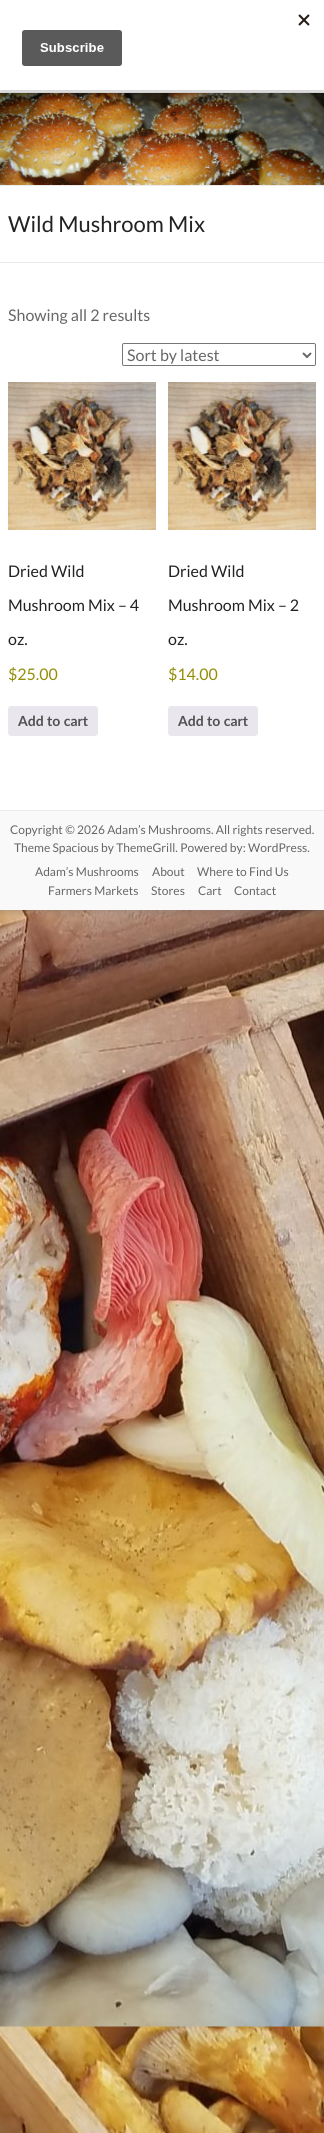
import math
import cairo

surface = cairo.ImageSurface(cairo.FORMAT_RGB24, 324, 2133)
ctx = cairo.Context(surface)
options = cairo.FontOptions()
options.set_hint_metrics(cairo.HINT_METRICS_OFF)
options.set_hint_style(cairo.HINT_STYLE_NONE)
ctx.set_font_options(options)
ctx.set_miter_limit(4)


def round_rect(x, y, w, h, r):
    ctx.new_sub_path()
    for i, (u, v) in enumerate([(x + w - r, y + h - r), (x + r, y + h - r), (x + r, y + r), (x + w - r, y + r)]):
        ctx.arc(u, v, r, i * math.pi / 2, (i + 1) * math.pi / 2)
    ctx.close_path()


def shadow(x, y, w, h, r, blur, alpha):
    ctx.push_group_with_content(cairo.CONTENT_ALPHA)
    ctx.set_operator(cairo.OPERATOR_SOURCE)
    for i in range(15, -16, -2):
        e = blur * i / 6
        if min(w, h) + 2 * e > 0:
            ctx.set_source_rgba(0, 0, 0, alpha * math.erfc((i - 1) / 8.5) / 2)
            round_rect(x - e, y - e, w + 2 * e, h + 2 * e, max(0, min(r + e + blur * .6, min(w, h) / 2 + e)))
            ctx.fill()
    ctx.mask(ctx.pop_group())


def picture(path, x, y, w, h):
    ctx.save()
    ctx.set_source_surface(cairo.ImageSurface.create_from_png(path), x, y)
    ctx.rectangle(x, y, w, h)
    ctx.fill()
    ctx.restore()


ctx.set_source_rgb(1, 1, 1)
ctx.paint()
picture("img1.png", 0, 910, 324, 1223)
ctx.set_source_rgb(0.392, 0.392, 0.392)
shadow(0, 2, 324, 910, 0, 3, 0.3)
ctx.set_source_rgb(1, 1, 1)
ctx.rectangle(0, 90, 324, 720)
ctx.fill()
ctx.set_source_rgb(0.918, 0.918, 0.918)
ctx.rectangle(0, 92, 324, 1)
ctx.fill()
picture("img3.png", 0, 93, 324, 92)
ctx.set_source_rgb(0, 0, 0)
shadow(0, 3, 324, 90, 0, 3, 0.2)
ctx.set_source_rgb(1, 1, 1)
ctx.rectangle(0, 0, 324, 90)
ctx.fill()
picture("img2.png", 22, 14, 288, 52)
ctx.set_source_rgb(0.918, 0.918, 0.918)
ctx.rectangle(0, 185, 324, 1)
ctx.fill()
ctx.rectangle(0, 262, 324, 1)
ctx.fill()
ctx.select_font_face("Lato")
ctx.set_font_size(22)
ctx.set_source_rgb(0.133, 0.133, 0.133)
ctx.move_to(8, 232)
ctx.show_text("Wild Mushroom Mix")
ctx.set_font_size(16)
ctx.set_source_rgb(0.4, 0.4, 0.4)
ctx.move_to(8, 321)
ctx.show_text("Showing all 2 results")
round_rect(122.5, 343.5, 193, 22, 1.5)
ctx.set_source_rgb(0.463, 0.463, 0.463)
ctx.set_line_width(1)
ctx.stroke()
ctx.new_path()
ctx.move_to(303, 353)
ctx.line_to(307, 357)
ctx.line_to(311, 353)
ctx.set_source_rgb(0.4, 0.4, 0.4)
ctx.set_line_width(2)
ctx.stroke()
ctx.move_to(127, 361)
ctx.show_text("Sort by latest")
picture("img4.png", 8, 382, 148, 148)
ctx.set_source_rgb(0.133, 0.133, 0.133)
ctx.move_to(8, 577)
ctx.show_text("Dried Wild")
ctx.move_to(8, 611)
ctx.show_text("Mushroom Mix – 4")
ctx.move_to(8, 645)
ctx.show_text("oz.")
ctx.set_source_rgb(0.584, 0.557, 0.035)
ctx.move_to(8, 680)
ctx.show_text("$25.00")
ctx.set_source_rgb(0.914, 0.902, 0.929)
round_rect(8, 706, 90, 30, 3)
ctx.fill()
ctx.select_font_face("Lato", cairo.FONT_SLANT_NORMAL, cairo.FONT_WEIGHT_BOLD)
ctx.set_font_size(14)
ctx.set_source_rgb(0.318, 0.318, 0.318)
ctx.move_to(18, 726)
ctx.show_text("Add to cart")
picture("img4.png", 168, 382, 148, 148)
ctx.select_font_face("Lato")
ctx.set_font_size(16)
ctx.set_source_rgb(0.133, 0.133, 0.133)
ctx.move_to(168, 577)
ctx.show_text("Dried Wild")
ctx.move_to(168, 611)
ctx.show_text("Mushroom Mix – 2")
ctx.move_to(168, 645)
ctx.show_text("oz.")
ctx.set_source_rgb(0.584, 0.557, 0.035)
ctx.move_to(168, 680)
ctx.show_text("$14.00")
ctx.set_source_rgb(0.914, 0.902, 0.929)
round_rect(168, 706, 90, 30, 3)
ctx.fill()
ctx.select_font_face("Lato", cairo.FONT_SLANT_NORMAL, cairo.FONT_WEIGHT_BOLD)
ctx.set_font_size(14)
ctx.set_source_rgb(0.318, 0.318, 0.318)
ctx.move_to(178, 726)
ctx.show_text("Add to cart")
ctx.set_source_rgb(0.973, 0.973, 0.973)
ctx.rectangle(0, 811, 324, 99)
ctx.fill()
ctx.set_source_rgb(0.918, 0.918, 0.918)
ctx.rectangle(0, 810, 324, 1)
ctx.fill()
ctx.select_font_face("Lato")
ctx.set_font_size(12)
ctx.set_source_rgb(0.4, 0.4, 0.4)
ctx.move_to(10, 834)
ctx.show_text("Copyright © 2026 Adam’s Mushrooms. All rights reserved.")
ctx.move_to(14, 852)
ctx.show_text("Theme Spacious by ThemeGrill. Powered by: WordPress.")
ctx.move_to(35, 876)
ctx.show_text("Adam’s Mushrooms")
ctx.move_to(152, 876)
ctx.show_text("About")
ctx.move_to(197, 876)
ctx.show_text("Where to Find Us")
ctx.move_to(48, 895)
ctx.show_text("Farmers Markets")
ctx.move_to(151, 895)
ctx.show_text("Stores")
ctx.move_to(198, 895)
ctx.show_text("Cart")
ctx.move_to(234, 895)
ctx.show_text("Contact")
surface.write_to_png("page.png")
